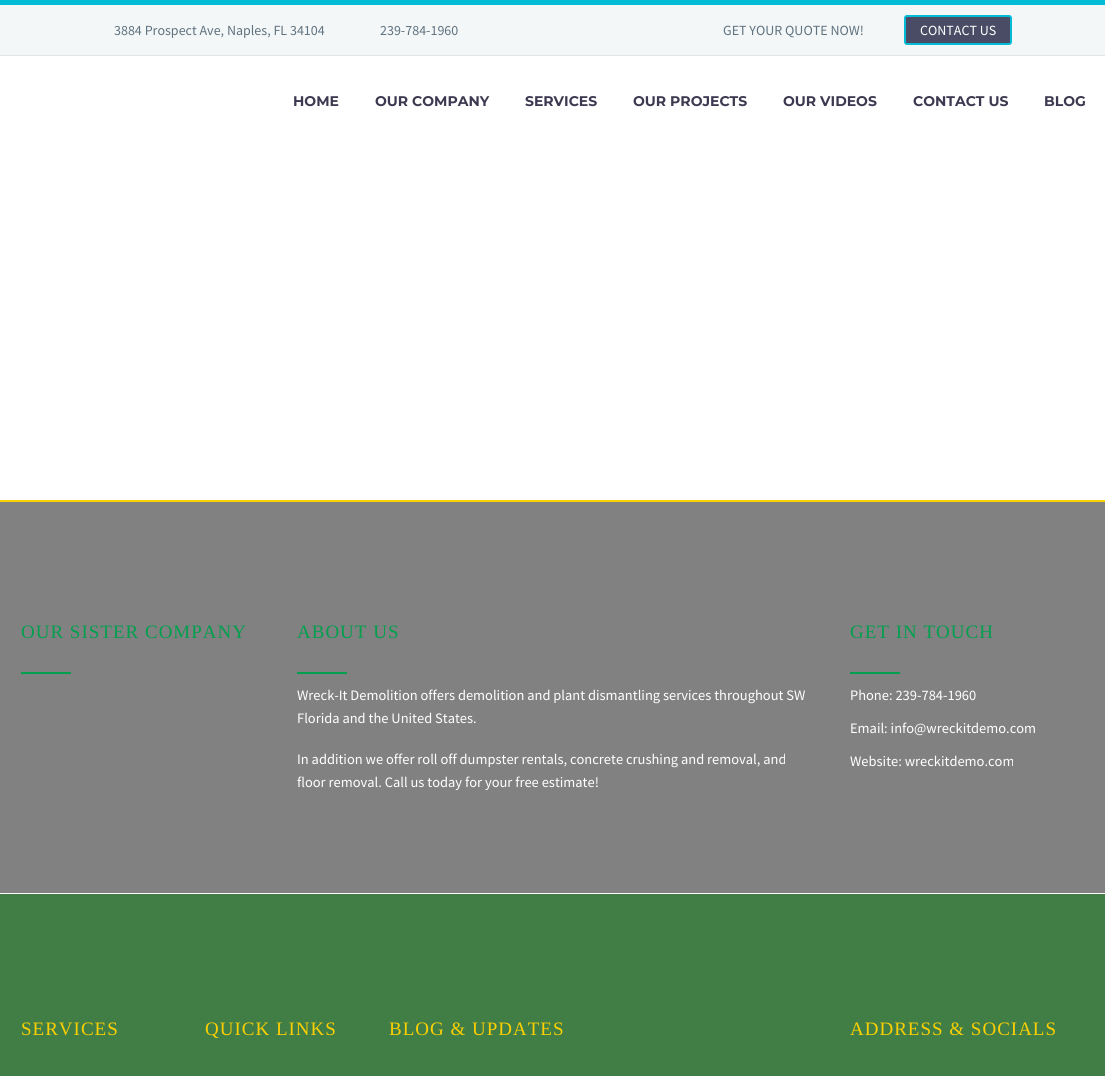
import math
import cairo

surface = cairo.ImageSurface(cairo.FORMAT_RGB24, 1105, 1076)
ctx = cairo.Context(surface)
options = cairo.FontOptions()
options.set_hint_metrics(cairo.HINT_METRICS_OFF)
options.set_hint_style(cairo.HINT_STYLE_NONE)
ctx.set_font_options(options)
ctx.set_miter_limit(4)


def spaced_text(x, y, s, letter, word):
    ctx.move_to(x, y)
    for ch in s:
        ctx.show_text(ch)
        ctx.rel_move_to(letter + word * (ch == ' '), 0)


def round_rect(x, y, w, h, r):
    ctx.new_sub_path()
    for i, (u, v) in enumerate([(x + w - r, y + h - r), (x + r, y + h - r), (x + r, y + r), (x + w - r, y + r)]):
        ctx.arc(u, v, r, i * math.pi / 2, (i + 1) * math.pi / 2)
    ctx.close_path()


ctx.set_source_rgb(0.957, 0.965, 0.969)
ctx.paint()
ctx.set_source_rgb(0, 0.737, 0.831)
ctx.rectangle(0, 0, 1105, 5)
ctx.fill()
ctx.set_source_rgb(0.875, 0.898, 0.91)
ctx.rectangle(0, 55, 1105, 1)
ctx.fill()
ctx.select_font_face("Source Sans Pro")
ctx.set_font_size(14)
ctx.set_source_rgb(0.373, 0.447, 0.498)
ctx.move_to(114, 35)
ctx.show_text("3884 Prospect Ave, Naples, FL 34104")
ctx.move_to(380, 35)
ctx.show_text("239-784-1960")
ctx.move_to(723, 35)
ctx.show_text("GET YOUR QUOTE NOW!")
ctx.set_source_rgb(0.286, 0.298, 0.392)
round_rect(905, 16, 106, 28, 2)
ctx.fill_preserve()
ctx.set_source_rgb(0, 0.737, 0.831)
ctx.stroke()
ctx.set_source_rgb(1, 1, 1)
ctx.move_to(920, 35)
ctx.show_text("CONTACT US")
ctx.rectangle(0, 56, 1105, 444)
ctx.fill()
ctx.select_font_face("Montserrat", cairo.FONT_SLANT_NORMAL, cairo.FONT_WEIGHT_BOLD)
ctx.set_source_rgb(0.235, 0.224, 0.314)
ctx.move_to(293, 106)
ctx.show_text("HOME")
ctx.move_to(375, 106)
ctx.show_text("OUR COMPANY")
ctx.move_to(525, 106)
ctx.show_text("SERVICES")
ctx.move_to(633, 106)
ctx.show_text("OUR PROJECTS")
ctx.move_to(783, 106)
ctx.show_text("OUR VIDEOS")
ctx.move_to(913, 106)
ctx.show_text("CONTACT US")
ctx.move_to(1044, 106)
ctx.show_text("BLOG")
ctx.set_source_rgb(0.506, 0.506, 0.506)
ctx.rectangle(0, 502, 1105, 391)
ctx.fill()
ctx.set_source_rgb(0.984, 0.812, 0)
ctx.rectangle(0, 500, 1105, 2)
ctx.fill()
ctx.select_font_face("Liberation Serif")
ctx.set_font_size(19)
ctx.set_source_rgb(0.004, 0.624, 0.306)
spaced_text(21, 638, "OUR SISTER COMPANY", 1, 0)
ctx.rectangle(21, 672, 50, 2)
ctx.fill()
spaced_text(297, 638, "ABOUT US", 1, 0)
ctx.rectangle(297, 672, 50, 2)
ctx.fill()
ctx.select_font_face("Source Sans Pro")
ctx.set_font_size(14.45)
ctx.set_source_rgb(1, 1, 1)
ctx.move_to(297, 700)
ctx.show_text("Wreck-It Demolition offers demolition and plant dismantling services throughout SW")
ctx.move_to(297, 723)
ctx.show_text("Florida and the United States.")
ctx.move_to(297, 764)
ctx.show_text("In addition we offer roll off dumpster rentals, concrete crushing and removal, and")
ctx.move_to(297, 787)
ctx.show_text("floor removal. Call us today for your free estimate!")
ctx.select_font_face("Liberation Serif")
ctx.set_font_size(19)
ctx.set_source_rgb(0.004, 0.624, 0.306)
spaced_text(850, 638, "GET IN TOUCH", 1, 0)
ctx.rectangle(850, 672, 50, 2)
ctx.fill()
ctx.select_font_face("Source Sans Pro")
ctx.set_font_size(14.45)
ctx.set_source_rgb(1, 1, 1)
ctx.move_to(850, 700)
ctx.show_text("Phone: 239-784-1960")
ctx.move_to(850, 733)
ctx.show_text("Email: info@wreckitdemo.com")
ctx.move_to(850, 766)
ctx.show_text("Website: wreckitdemo.com")
ctx.rectangle(0, 893, 1105, 1)
ctx.fill()
ctx.set_source_rgb(0.251, 0.494, 0.275)
ctx.rectangle(0, 894, 1105, 182)
ctx.fill()
ctx.select_font_face("Liberation Serif")
ctx.set_font_size(19)
ctx.set_source_rgb(0.984, 0.812, 0)
spaced_text(21, 1035, "SERVICES", 1, 0)
spaced_text(205, 1035, "QUICK LINKS", 1, 0)
spaced_text(389, 1035, "BLOG & UPDATES", 1, 0)
spaced_text(850, 1035, "ADDRESS & SOCIALS", 1, 0)
surface.write_to_png("page.png")
